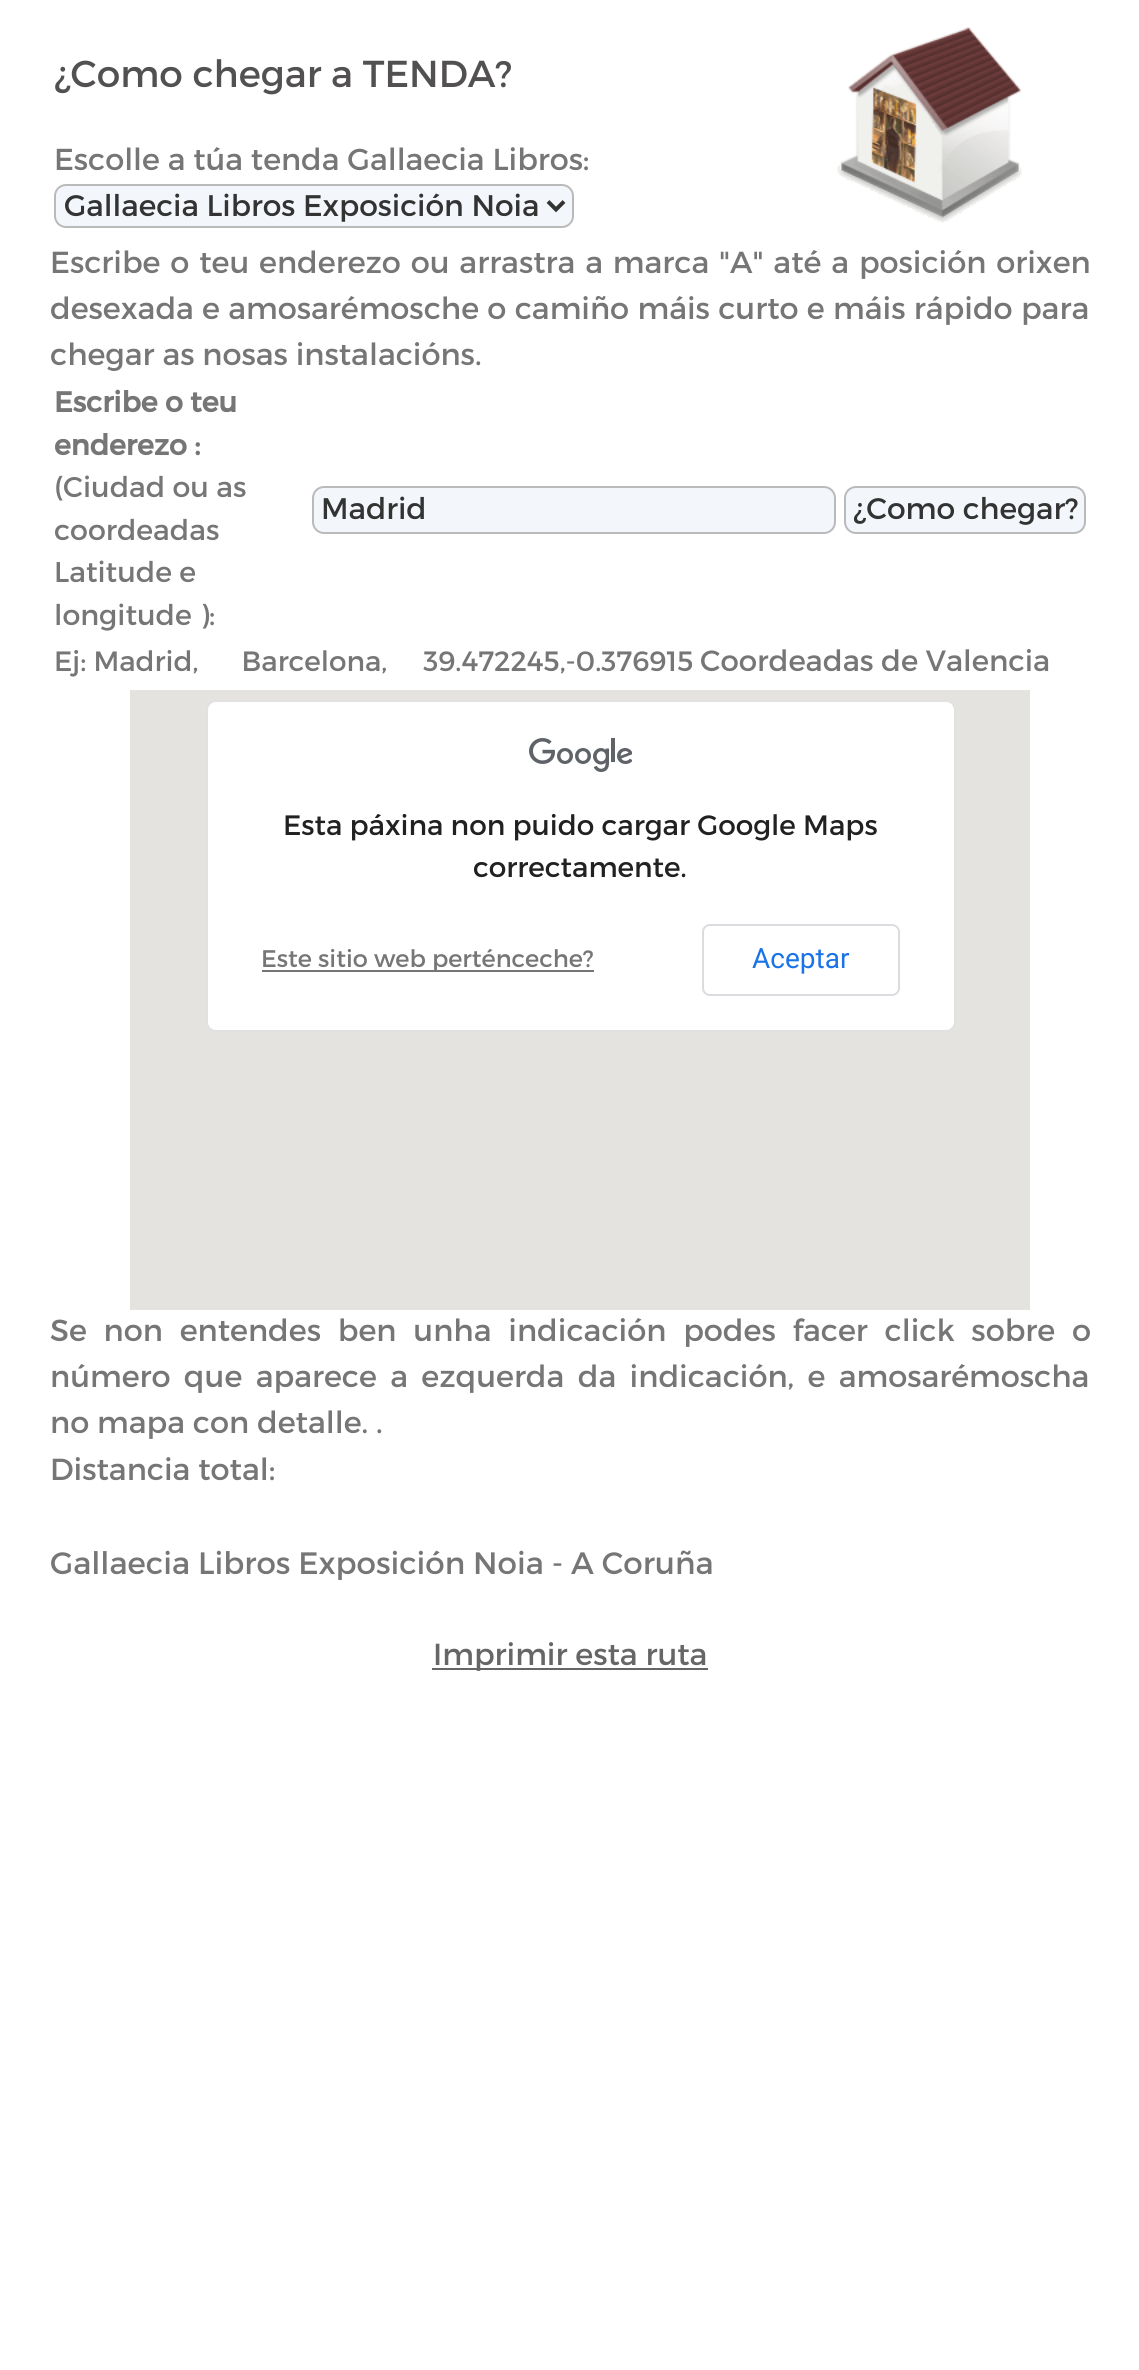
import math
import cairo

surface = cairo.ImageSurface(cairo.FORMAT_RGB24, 1139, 2370)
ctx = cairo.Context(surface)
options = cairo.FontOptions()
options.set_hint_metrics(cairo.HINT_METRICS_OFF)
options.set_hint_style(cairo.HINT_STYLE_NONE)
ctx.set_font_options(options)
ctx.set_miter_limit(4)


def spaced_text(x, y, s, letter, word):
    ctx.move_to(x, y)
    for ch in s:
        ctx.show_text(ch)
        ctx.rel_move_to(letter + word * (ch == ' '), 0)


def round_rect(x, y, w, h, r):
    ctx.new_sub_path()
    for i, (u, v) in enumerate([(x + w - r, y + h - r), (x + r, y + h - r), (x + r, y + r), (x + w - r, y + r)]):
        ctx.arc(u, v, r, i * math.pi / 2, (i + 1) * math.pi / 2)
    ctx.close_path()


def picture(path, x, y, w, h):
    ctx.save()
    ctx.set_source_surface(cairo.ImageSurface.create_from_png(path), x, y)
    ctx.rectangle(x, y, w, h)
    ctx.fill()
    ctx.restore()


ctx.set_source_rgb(1, 1, 1)
ctx.paint()
ctx.select_font_face("Montserrat")
ctx.set_font_size(37.5)
ctx.set_source_rgb(0.322, 0.314, 0.314)
ctx.move_to(54, 87)
ctx.show_text("¿Como chegar a TENDA?")
ctx.set_font_size(30.3)
ctx.set_source_rgb(0.463, 0.463, 0.463)
ctx.move_to(54, 170)
ctx.show_text("Escolle a túa tenda Gallaecia Libros:")
ctx.set_source_rgb(0.953, 0.965, 0.984)
round_rect(55, 185, 518, 42, 11)
ctx.fill_preserve()
ctx.set_source_rgb(0.729, 0.729, 0.729)
ctx.stroke()
ctx.new_path()
ctx.move_to(548, 201.5)
ctx.line_to(556, 209.5)
ctx.line_to(564, 201.5)
ctx.set_source_rgb(0.2, 0.2, 0.2)
ctx.set_line_width(4)
ctx.stroke()
ctx.set_font_size(29.75)
ctx.move_to(64, 216)
ctx.show_text("Gallaecia Libros Exposición Noia")
picture("img1.png", 837, 27, 185, 196)
ctx.set_font_size(30.4)
ctx.set_source_rgb(0.463, 0.463, 0.463)
spaced_text(50, 273, "Escribe o teu enderezo ou arrastra a marca \"A\" até a posición orixen", 0, 2)
ctx.move_to(50, 319)
ctx.show_text("desexada")
spaced_text(202, 319, "e amosarémosche o camiño máis curto e máis rápido para", 0, 0.5)
ctx.move_to(50, 365)
ctx.show_text("chegar as nosas instalacións.")
ctx.select_font_face("Montserrat", cairo.FONT_SLANT_NORMAL, cairo.FONT_WEIGHT_BOLD)
ctx.set_font_size(28.5)
ctx.move_to(54, 412)
ctx.show_text("Escribe o teu")
ctx.move_to(54, 455)
ctx.show_text("enderezo :")
ctx.select_font_face("Montserrat")
ctx.move_to(54, 497)
ctx.show_text("(Ciudad ou as")
ctx.move_to(54, 540)
ctx.show_text("coordeadas")
ctx.move_to(54, 582)
ctx.show_text("Latitude e")
ctx.move_to(54, 625)
ctx.show_text("longitude ):")
ctx.set_source_rgb(0.953, 0.965, 0.984)
round_rect(313, 487, 522, 46, 11)
ctx.fill_preserve()
ctx.set_source_rgb(0.729, 0.729, 0.729)
ctx.set_line_width(2)
ctx.stroke()
ctx.set_font_size(29.75)
ctx.set_source_rgb(0.2, 0.2, 0.2)
ctx.move_to(321, 519)
ctx.show_text("Madrid")
ctx.set_source_rgb(0.953, 0.965, 0.984)
round_rect(845, 487, 240, 46, 11)
ctx.fill_preserve()
ctx.set_source_rgb(0.729, 0.729, 0.729)
ctx.stroke()
ctx.set_source_rgb(0.2, 0.2, 0.2)
ctx.move_to(853, 519)
ctx.show_text("¿Como chegar?")
ctx.set_font_size(27.9)
ctx.set_source_rgb(0.463, 0.463, 0.463)
ctx.move_to(54, 671)
ctx.show_text("Ej: Madrid,      Barcelona,     39.472245,-0.376915")
ctx.set_font_size(29.25)
ctx.move_to(700, 671)
ctx.show_text("Coordeadas de Valencia")
ctx.set_source_rgb(0.898, 0.89, 0.875)
ctx.rectangle(130, 690, 900, 620)
ctx.fill()
ctx.set_source_rgb(1, 1, 1)
round_rect(206, 700, 750, 332, 10)
ctx.fill()
round_rect(207, 701, 748, 330, 9)
ctx.set_source_rgba(0, 0, 0, 0.12)
ctx.stroke()
picture("img2.png", 529, 738, 103, 34)
ctx.set_font_size(28)
ctx.set_source_rgb(0.129, 0.129, 0.129)
ctx.move_to(283, 835)
ctx.show_text("Esta páxina non puido cargar Google Maps")
ctx.move_to(473, 877)
ctx.show_text("correctamente.")
ctx.set_source_rgb(0.459, 0.459, 0.459)
ctx.rectangle(262, 970, 332, 2)
ctx.fill()
ctx.set_font_size(24)
ctx.set_source_rgb(0.463, 0.463, 0.463)
ctx.move_to(261, 967)
ctx.show_text("Este sitio web perténceche?")
round_rect(703, 925, 196, 70, 7)
ctx.set_source_rgb(0.855, 0.863, 0.878)
ctx.stroke()
ctx.select_font_face("Roboto")
ctx.set_font_size(28)
ctx.set_source_rgb(0.102, 0.451, 0.91)
ctx.move_to(752, 968)
ctx.show_text("Aceptar")
ctx.select_font_face("Montserrat")
ctx.set_font_size(30.4)
ctx.set_source_rgb(0.463, 0.463, 0.463)
spaced_text(50, 1341, "Se non entendes ben unha indicación podes facer click sobre o", 0, 9)
spaced_text(50, 1387, "número que aparece a ezquerda da indicación, e amosarémoscha", 0, 5.5)
ctx.move_to(50, 1433)
ctx.show_text("no mapa con detalle. .")
ctx.move_to(50, 1480)
ctx.show_text("Distancia total:")
ctx.set_font_size(30.9)
ctx.move_to(50, 1574)
ctx.show_text("Gallaecia Libros Exposición Noia - A Coruña")
ctx.set_source_rgb(0.4, 0.4, 0.4)
ctx.rectangle(432, 1668, 276, 2)
ctx.fill()
ctx.set_font_size(30.4)
ctx.move_to(433, 1665)
ctx.show_text("Imprimir esta ruta")
surface.write_to_png("page.png")
